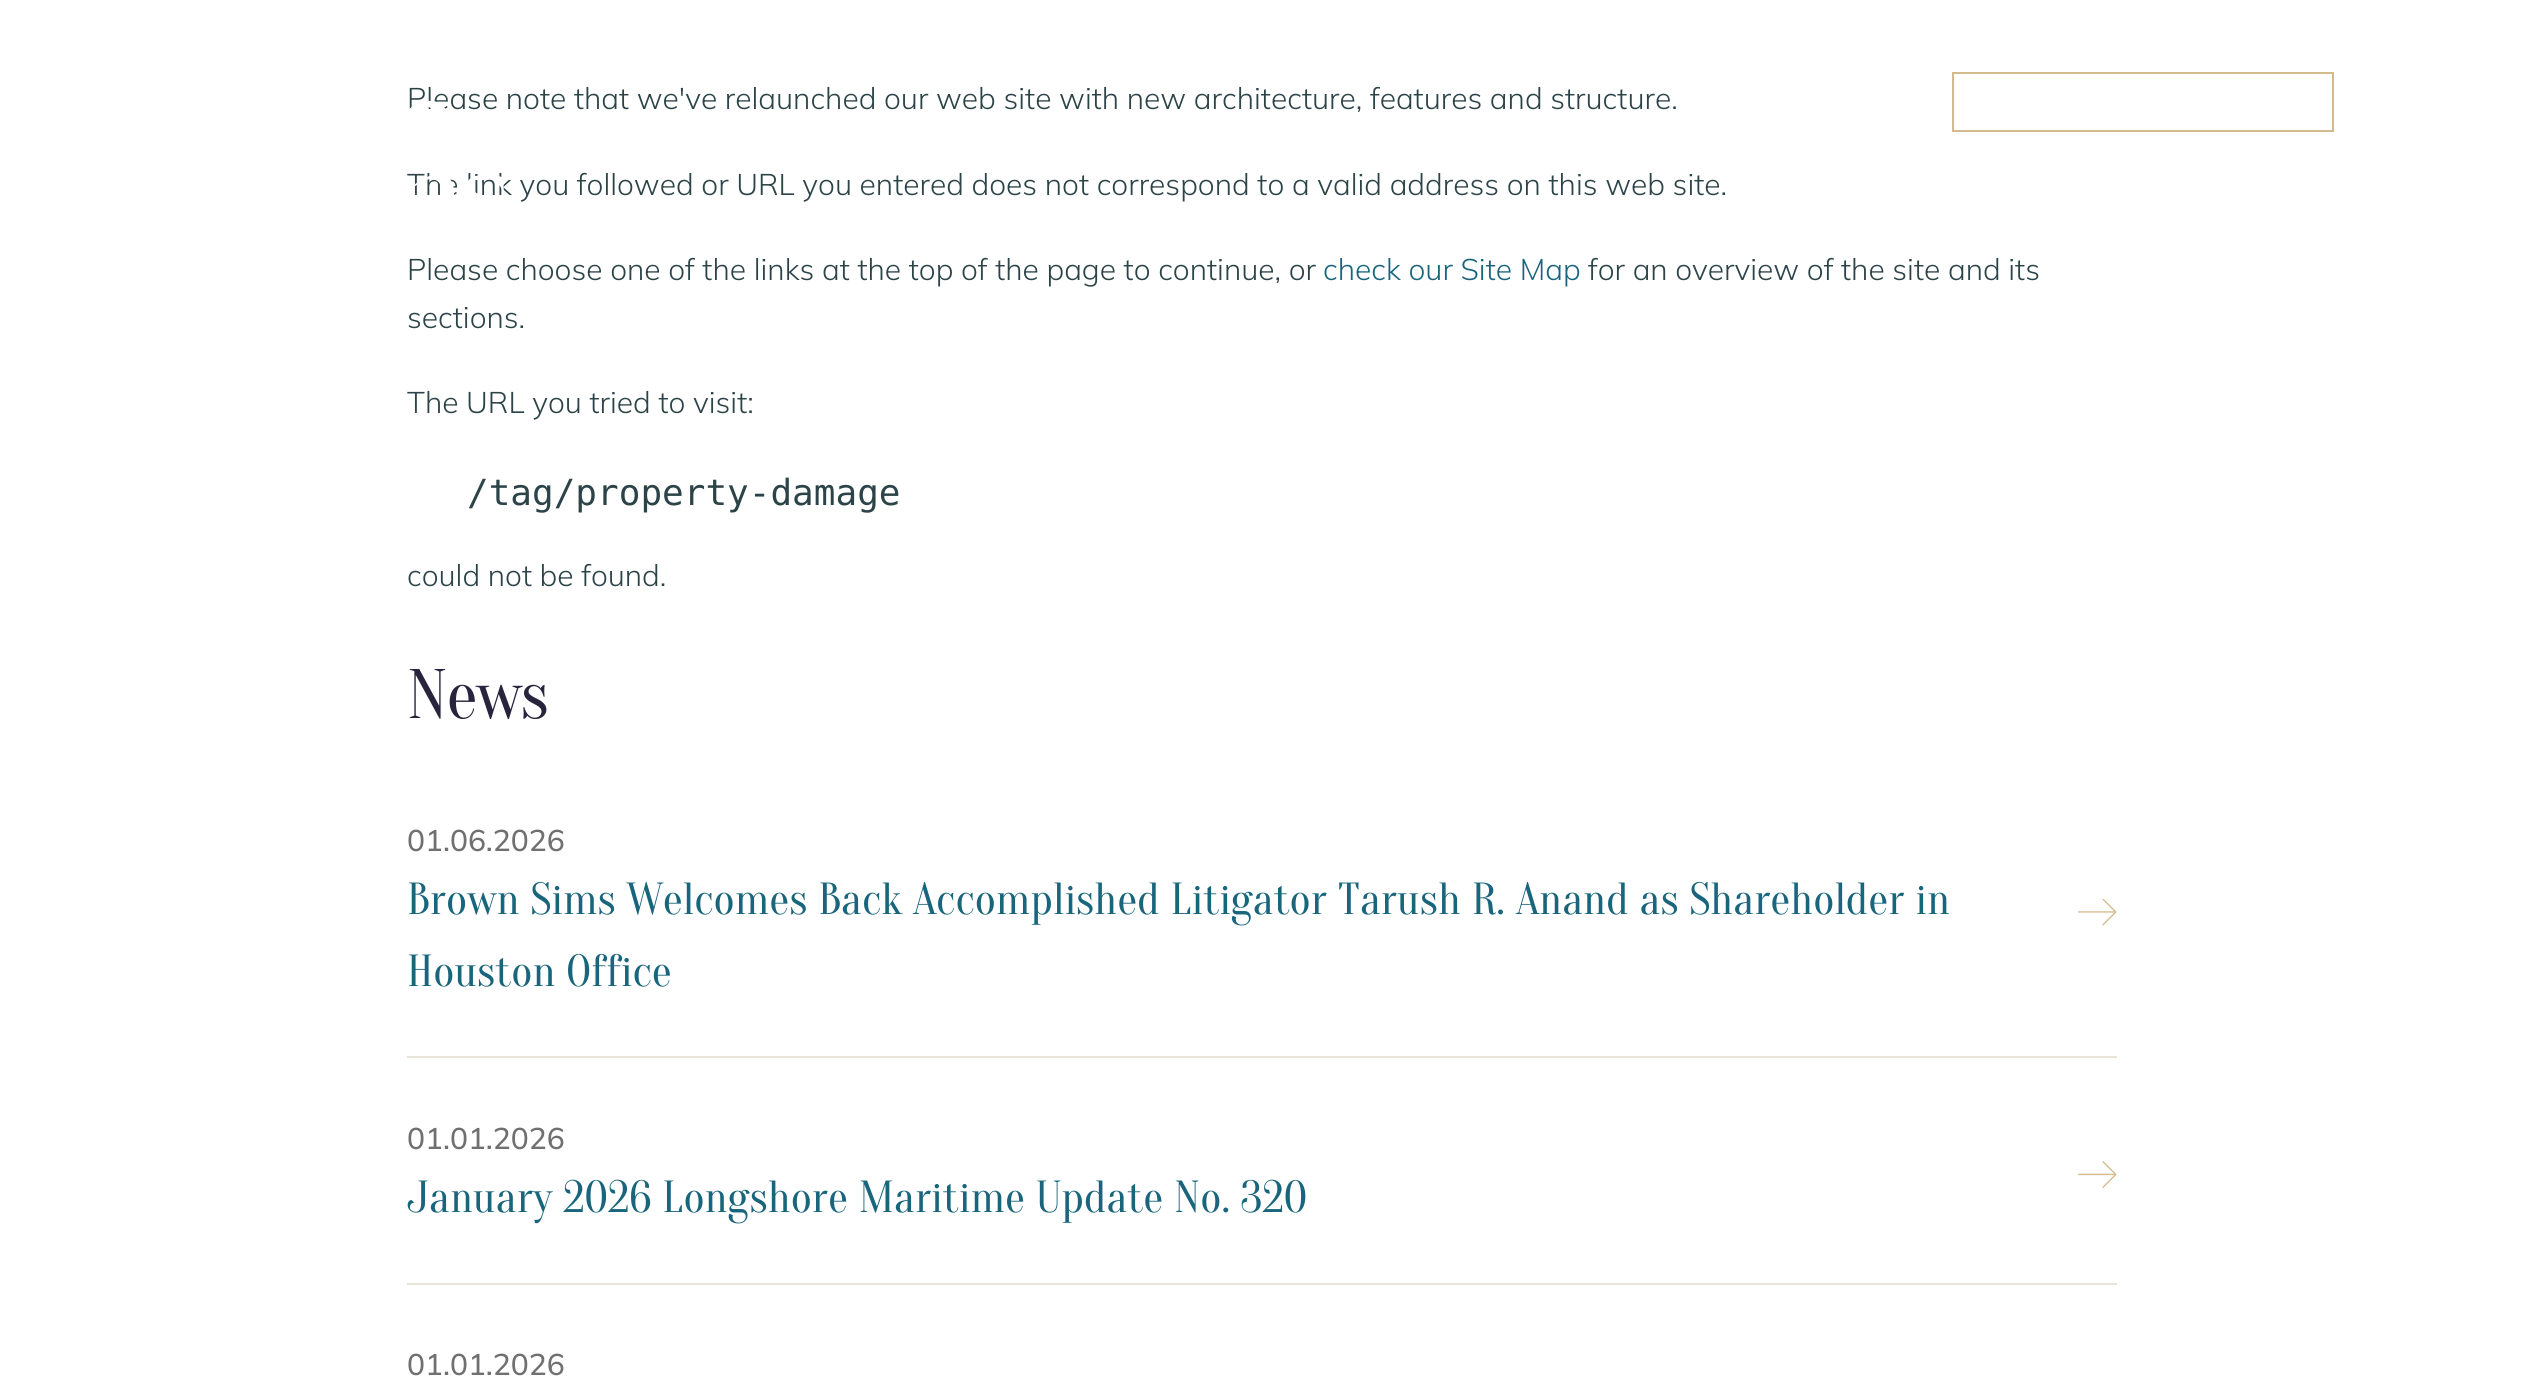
import math
import cairo

surface = cairo.ImageSurface(cairo.FORMAT_RGB24, 2522, 1377)
ctx = cairo.Context(surface)
options = cairo.FontOptions()
options.set_hint_metrics(cairo.HINT_METRICS_OFF)
options.set_hint_style(cairo.HINT_STYLE_NONE)
ctx.set_font_options(options)
ctx.set_miter_limit(4)


def spaced_text(x, y, s, letter, word):
    ctx.move_to(x, y)
    for ch in s:
        ctx.show_text(ch)
        ctx.rel_move_to(letter + word * (ch == ' '), 0)


def picture(path, x, y, w, h):
    ctx.save()
    ctx.set_source_surface(cairo.ImageSurface.create_from_png(path), x, y)
    ctx.rectangle(x, y, w, h)
    ctx.fill()
    ctx.restore()


ctx.set_source_rgb(1, 1, 1)
ctx.paint()
ctx.select_font_face("Mulish Light")
ctx.set_font_size(29.95)
ctx.set_source_rgb(0.173, 0.267, 0.282)
ctx.move_to(407, 109)
ctx.show_text("Please note that we've relaunched our web site with new architecture, features and structure.")
ctx.move_to(407, 195)
ctx.show_text("The link you followed or URL you entered does not correspond to a valid address on this web site.")
picture("img1.png", 409, 100, 95, 96)
ctx.rectangle(1953, 73, 380, 58)
ctx.set_source_rgb(0.827, 0.733, 0.557)
ctx.stroke()
ctx.set_source_rgb(0.173, 0.267, 0.282)
ctx.move_to(407, 280)
ctx.show_text("Please choose one of the links at the top of the page to continue, or")
ctx.set_source_rgb(0.098, 0.396, 0.486)
ctx.move_to(1323, 280)
ctx.show_text("check our Site Map")
ctx.set_source_rgb(0.173, 0.267, 0.282)
ctx.move_to(1588, 280)
ctx.show_text("for an overview of the site and its")
ctx.move_to(407, 328)
ctx.show_text("sections.")
ctx.move_to(407, 413)
ctx.show_text("The URL you tried to visit:")
ctx.select_font_face("DejaVu Sans Mono")
ctx.set_font_size(36)
ctx.move_to(467, 505)
ctx.show_text("/tag/property-damage")
ctx.select_font_face("Mulish Light")
ctx.set_font_size(29.95)
ctx.move_to(407, 586)
ctx.show_text("could not be found.")
ctx.select_font_face("Oranienbaum")
ctx.set_font_size(70)
ctx.set_source_rgb(0.161, 0.141, 0.243)
spaced_text(407, 718, "News", -1.5, 0)
ctx.set_source_rgb(0.918, 0.894, 0.851)
ctx.rectangle(407, 1056, 1710, 2)
ctx.fill()
ctx.select_font_face("Mulish Medium")
ctx.set_font_size(29.95)
ctx.set_source_rgb(0.439, 0.439, 0.439)
ctx.move_to(407, 851)
ctx.show_text("01.06.2026")
ctx.select_font_face("Oranienbaum")
ctx.set_font_size(44.95)
ctx.set_source_rgb(0.098, 0.396, 0.486)
ctx.move_to(407, 914)
ctx.show_text("Brown Sims Welcomes Back Accomplished Litigator Tarush R. Anand as Shareholder in")
ctx.move_to(407, 986)
ctx.show_text("Houston Office")
picture("img2.png", 2078, 899, 39, 27)
ctx.set_source_rgb(0.918, 0.894, 0.851)
ctx.rectangle(407, 1283, 1710, 2)
ctx.fill()
ctx.select_font_face("Mulish Medium")
ctx.set_font_size(29.95)
ctx.set_source_rgb(0.439, 0.439, 0.439)
ctx.move_to(407, 1149)
ctx.show_text("01.01.2026")
picture("img3.png", 2078, 1161, 39, 27)
ctx.select_font_face("Oranienbaum")
ctx.set_font_size(44.95)
ctx.set_source_rgb(0.098, 0.396, 0.486)
ctx.move_to(407, 1212)
ctx.show_text("January 2026 Longshore Maritime Update No. 320")
ctx.select_font_face("Mulish Medium")
ctx.set_font_size(29.95)
ctx.set_source_rgb(0.439, 0.439, 0.439)
ctx.move_to(407, 1375)
ctx.show_text("01.01.2026")
surface.write_to_png("page.png")
